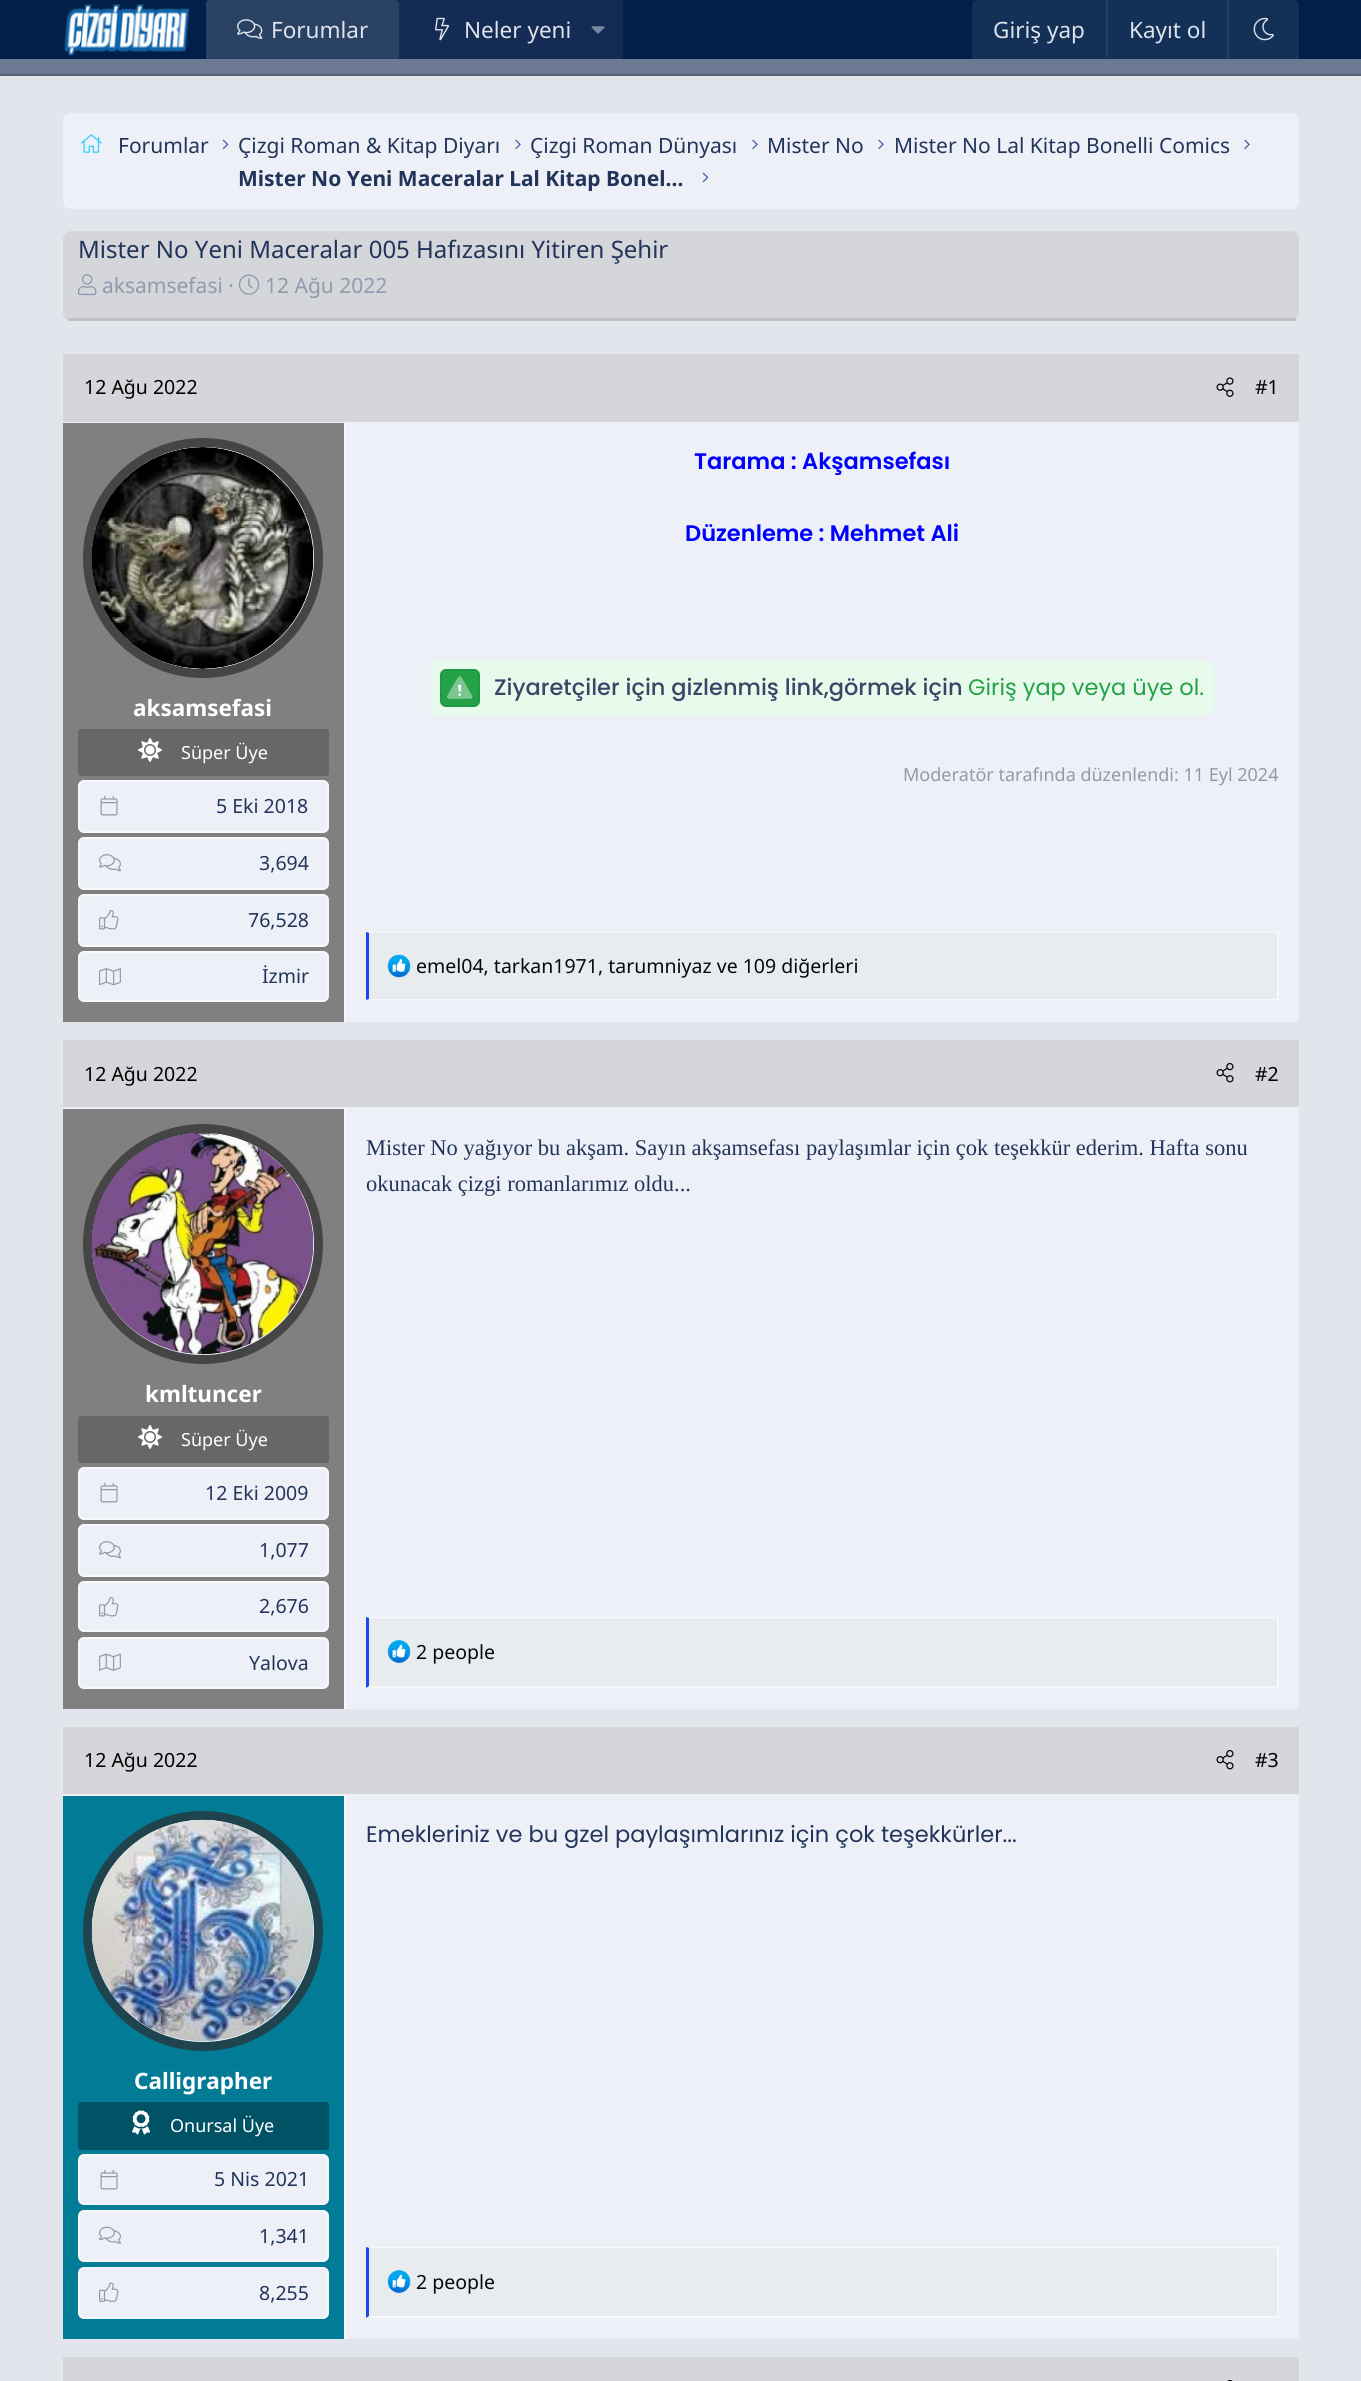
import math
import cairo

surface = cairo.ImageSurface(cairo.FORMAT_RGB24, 1361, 2381)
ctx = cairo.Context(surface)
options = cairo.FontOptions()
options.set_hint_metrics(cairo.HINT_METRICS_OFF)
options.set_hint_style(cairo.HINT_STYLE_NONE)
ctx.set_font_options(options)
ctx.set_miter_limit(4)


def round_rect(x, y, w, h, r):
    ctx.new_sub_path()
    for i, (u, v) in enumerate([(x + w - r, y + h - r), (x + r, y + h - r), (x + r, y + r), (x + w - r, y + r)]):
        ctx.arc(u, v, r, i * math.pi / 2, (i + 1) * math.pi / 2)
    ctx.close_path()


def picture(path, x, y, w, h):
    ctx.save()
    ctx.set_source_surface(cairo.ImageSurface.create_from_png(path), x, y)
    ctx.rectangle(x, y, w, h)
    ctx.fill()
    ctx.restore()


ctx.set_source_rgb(0.886, 0.898, 0.918)
ctx.paint()
ctx.set_source_rgb(0, 0.125, 0.29)
ctx.rectangle(0, 0, 1361, 59)
ctx.fill()
picture("img1.png", 64, 4, 126, 52)
ctx.set_source_rgb(0.161, 0.259, 0.392)
ctx.new_path()
ctx.move_to(209, 0)
ctx.line_to(396, 0)
ctx.curve_to(397.5, 0, 399, 1.5, 399, 3)
ctx.line_to(399, 59)
ctx.line_to(206, 59)
ctx.line_to(206, 3)
ctx.curve_to(206, 1.5, 207.5, 0, 209, 0)
ctx.close_path()
ctx.fill()
picture("img2.png", 237, 19, 26, 20)
ctx.select_font_face("Noto Sans")
ctx.set_font_size(22.5)
ctx.set_source_rgb(0.867, 0.886, 0.925)
ctx.move_to(271, 38)
ctx.show_text("Forumlar")
ctx.set_source_rgb(0.082, 0.173, 0.329)
ctx.rectangle(399, 0, 224, 59)
ctx.fill()
picture("img3.png", 435, 17, 15, 24)
ctx.set_source_rgb(0.867, 0.886, 0.925)
ctx.move_to(464, 38)
ctx.show_text("Neler yeni")
picture("img4.png", 591, 26, 14, 8)
ctx.set_source_rgb(0.078, 0.192, 0.341)
ctx.new_path()
ctx.move_to(978, 0)
ctx.line_to(1293, 0)
ctx.curve_to(1296.5, 0, 1299, 2.5, 1299, 6)
ctx.line_to(1299, 59)
ctx.line_to(972, 59)
ctx.line_to(972, 6)
ctx.curve_to(972, 2.5, 974.5, 0, 978, 0)
ctx.close_path()
ctx.fill()
ctx.set_source_rgb(0.867, 0.886, 0.925)
ctx.move_to(993, 38)
ctx.show_text("Giriş yap")
ctx.set_source_rgb(0.149, 0.255, 0.388)
ctx.rectangle(1106, 0, 2, 57)
ctx.fill()
ctx.set_source_rgb(0.867, 0.886, 0.925)
ctx.move_to(1129, 38)
ctx.show_text("Kayıt ol")
ctx.set_source_rgb(0.149, 0.255, 0.388)
ctx.rectangle(1227, 0, 2, 59)
ctx.fill()
picture("img5.png", 1253, 17, 21, 24)
ctx.set_source_rgb(0.42, 0.475, 0.573)
ctx.rectangle(0, 59, 1361, 15)
ctx.fill()
ctx.set_source_rgb(0.333, 0.38, 0.459)
ctx.rectangle(0, 74, 1361, 2)
ctx.fill()
ctx.set_source_rgb(0.929, 0.941, 0.961)
round_rect(63, 113, 1236, 96, 8)
ctx.fill()
picture("img6.png", 80, 134, 22, 19)
ctx.set_font_size(21)
ctx.set_source_rgb(0.137, 0.204, 0.357)
ctx.move_to(118, 153)
ctx.show_text("Forumlar")
picture("img7.png", 222, 139, 7, 11)
ctx.move_to(238, 153)
ctx.show_text("Çizgi Roman & Kitap Diyarı")
picture("img8.png", 515, 139, 6, 11)
ctx.move_to(530, 153)
ctx.show_text("Çizgi Roman Dünyası")
picture("img8.png", 752, 139, 6, 11)
ctx.move_to(767, 153)
ctx.show_text("Mister No")
picture("img8.png", 878, 139, 6, 11)
ctx.move_to(894, 153)
ctx.show_text("Mister No Lal Kitap Bonelli Comics")
picture("img8.png", 1244, 139, 6, 11)
ctx.select_font_face("Noto Sans", cairo.FONT_SLANT_NORMAL, cairo.FONT_WEIGHT_BOLD)
ctx.move_to(238, 186)
ctx.show_text("Mister No Yeni Maceralar Lal Kitap Bonel…")
picture("img7.png", 702, 172, 7, 11)
ctx.set_source_rgb(0.835, 0.839, 0.855)
round_rect(63, 231, 1236, 90, 8)
ctx.fill()
ctx.set_source_rgb(0.753, 0.757, 0.769)
ctx.rectangle(68, 318, 1228, 3)
ctx.fill()
ctx.select_font_face("Noto Sans")
ctx.set_font_size(24)
ctx.set_source_rgb(0.137, 0.204, 0.357)
ctx.move_to(78, 258)
ctx.show_text("Mister No Yeni Maceralar 005 Hafızasını Yitiren Şehir")
picture("img9.png", 78, 274, 19, 22)
ctx.set_font_size(21)
ctx.set_source_rgb(0.569, 0.6, 0.678)
ctx.move_to(102, 293)
ctx.show_text("aksamsefasi ·")
picture("img10.png", 238, 274, 22, 21)
ctx.move_to(265, 293)
ctx.show_text("12 Ağu 2022")
ctx.set_source_rgb(0.835, 0.839, 0.855)
ctx.rectangle(63, 354, 1236, 68)
ctx.fill()
ctx.set_source_rgb(0.929, 0.941, 0.961)
ctx.rectangle(63, 422, 1236, 1)
ctx.fill()
ctx.set_font_size(19.5)
ctx.set_source_rgb(0, 0, 0)
ctx.move_to(84, 394)
ctx.show_text("12 Ağu 2022")
picture("img11.png", 1216, 377, 18, 20)
ctx.move_to(1255, 394)
ctx.show_text("#1")
ctx.set_source_rgb(0.929, 0.941, 0.961)
ctx.new_path()
ctx.move_to(345, 423)
ctx.line_to(1299, 423)
ctx.line_to(1299, 1017)
ctx.curve_to(1299, 1020, 1297, 1022, 1294, 1022)
ctx.line_to(345, 1022)
ctx.close_path()
ctx.fill()
ctx.set_source_rgb(0.965, 0.969, 0.984)
ctx.rectangle(344, 423, 2, 599)
ctx.fill()
ctx.set_source_rgb(0.502, 0.502, 0.502)
ctx.rectangle(63, 423, 281, 599)
ctx.fill()
ctx.arc(203, 558, 115.5, 0, 2 * math.pi)
ctx.set_source_rgb(0.271, 0.271, 0.275)
ctx.set_line_width(9)
ctx.stroke()
ctx.set_source_rgb(0.929, 0.941, 0.961)
ctx.arc(203, 558, 111, 0, 2 * math.pi)
ctx.fill()
picture("img12.png", 91, 447, 223, 222)
ctx.select_font_face("Noto Sans", cairo.FONT_SLANT_NORMAL, cairo.FONT_WEIGHT_BOLD)
ctx.set_font_size(22.5)
ctx.set_source_rgb(1, 1, 1)
ctx.move_to(133, 716)
ctx.show_text("aksamsefasi")
ctx.set_source_rgb(0.404, 0.404, 0.404)
round_rect(78, 729, 251, 47, 3)
ctx.fill()
picture("img13.png", 138, 738, 24, 24)
ctx.select_font_face("Noto Sans")
ctx.set_font_size(18)
ctx.set_source_rgb(1, 1, 1)
ctx.move_to(181, 759)
ctx.show_text("Süper Üye")
ctx.set_source_rgb(0.929, 0.941, 0.961)
round_rect(79, 781, 249, 51, 5)
ctx.fill_preserve()
ctx.set_source_rgb(0.965, 0.969, 0.984)
ctx.set_line_width(2)
ctx.stroke()
picture("img14.png", 100, 796, 18, 20)
ctx.set_font_size(19.5)
ctx.set_source_rgb(0.137, 0.204, 0.357)
ctx.move_to(216, 813)
ctx.show_text("5 Eki 2018")
ctx.set_source_rgb(0.929, 0.941, 0.961)
round_rect(79, 838, 249, 51, 5)
ctx.fill_preserve()
ctx.set_source_rgb(0.965, 0.969, 0.984)
ctx.stroke()
picture("img15.png", 99, 854, 22, 18)
ctx.set_source_rgb(0.137, 0.204, 0.357)
ctx.move_to(259, 870)
ctx.show_text("3,694")
ctx.set_source_rgb(0.929, 0.941, 0.961)
round_rect(79, 895, 249, 51, 5)
ctx.fill_preserve()
ctx.set_source_rgb(0.965, 0.969, 0.984)
ctx.stroke()
picture("img16.png", 99, 910, 20, 20)
ctx.set_source_rgb(0.137, 0.204, 0.357)
ctx.move_to(248, 927)
ctx.show_text("76,528")
ctx.set_source_rgb(0.929, 0.941, 0.961)
round_rect(79, 952, 249, 49, 5)
ctx.fill_preserve()
ctx.set_source_rgb(0.965, 0.969, 0.984)
ctx.stroke()
picture("img17.png", 99, 968, 22, 18)
ctx.set_source_rgb(0.137, 0.204, 0.357)
ctx.move_to(262, 983)
ctx.show_text("İzmir")
ctx.select_font_face("Poppins SemiBold")
ctx.set_font_size(22.5)
ctx.set_source_rgb(0, 0, 1)
ctx.move_to(694, 469)
ctx.show_text("Tarama : Akşamsefası")
ctx.move_to(685, 541)
ctx.show_text("Düzenleme : Mehmet Ali")
ctx.set_source_rgb(0.906, 0.98, 0.925)
round_rect(431, 660, 783, 56, 9)
ctx.fill()
ctx.set_source_rgb(0.141, 0.635, 0.278)
round_rect(441, 670, 38, 36, 5)
ctx.fill_preserve()
ctx.set_source_rgb(0.133, 0.592, 0.263)
ctx.stroke()
picture("img19.png", 458, 684, 4, 12)
picture("img18.png", 447, 676, 26, 23)
ctx.select_font_face("Poppins Medium")
ctx.set_source_rgb(0.239, 0.267, 0.396)
ctx.move_to(494, 695)
ctx.show_text("Ziyaretçiler için gizlenmiş link,görmek için")
ctx.select_font_face("Poppins")
ctx.set_source_rgb(0.141, 0.635, 0.278)
ctx.move_to(968, 695)
ctx.show_text("Giriş yap veya üye ol.")
ctx.select_font_face("Noto Sans")
ctx.set_font_size(18)
ctx.set_source_rgb(0.569, 0.6, 0.678)
ctx.move_to(903, 781)
ctx.show_text("Moderatör tarafında düzenlendi: 11 Eyl 2024")
ctx.set_source_rgb(0.91, 0.922, 0.937)
ctx.rectangle(369, 933, 908, 66)
ctx.fill()
ctx.set_source_rgb(0.965, 0.969, 0.984)
ctx.new_path()
ctx.move_to(366, 932)
ctx.line_to(1278, 932)
ctx.line_to(1276, 933)
ctx.line_to(369, 933)
ctx.close_path()
ctx.fill()
ctx.rectangle(1277, 932, 2, 69)
ctx.fill()
ctx.new_path()
ctx.move_to(1278, 1000)
ctx.line_to(366, 1000)
ctx.line_to(369, 999)
ctx.line_to(1276, 999)
ctx.close_path()
ctx.fill()
ctx.set_source_rgb(0.11, 0.275, 0.918)
ctx.new_path()
ctx.move_to(366, 1000)
ctx.line_to(366, 932)
ctx.line_to(369, 933)
ctx.line_to(369, 999)
ctx.close_path()
ctx.fill()
picture("img20.png", 387, 954, 24, 24)
ctx.set_font_size(19.5)
ctx.set_source_rgb(0.027, 0.039, 0.067)
ctx.move_to(416, 973)
ctx.show_text("emel04, tarkan1971, tarumniyaz ve 109 diğerleri")
ctx.set_source_rgb(0.835, 0.839, 0.855)
ctx.rectangle(63, 1040, 1236, 67)
ctx.fill()
ctx.set_source_rgb(0.929, 0.941, 0.961)
ctx.rectangle(63, 1107, 1236, 2)
ctx.fill()
ctx.set_source_rgb(0, 0, 0)
ctx.move_to(84, 1081)
ctx.show_text("12 Ağu 2022")
picture("img21.png", 1216, 1063, 18, 20)
ctx.move_to(1255, 1081)
ctx.show_text("#2")
ctx.set_source_rgb(0.929, 0.941, 0.961)
ctx.new_path()
ctx.move_to(345, 1109)
ctx.line_to(1299, 1109)
ctx.line_to(1299, 1704)
ctx.curve_to(1299, 1707, 1297, 1709, 1294, 1709)
ctx.line_to(345, 1709)
ctx.close_path()
ctx.fill()
ctx.set_source_rgb(0.965, 0.969, 0.984)
ctx.rectangle(344, 1109, 2, 600)
ctx.fill()
ctx.set_source_rgb(0.502, 0.502, 0.502)
ctx.rectangle(63, 1109, 281, 600)
ctx.fill()
ctx.arc(203, 1244, 115.5, 0, 2 * math.pi)
ctx.set_source_rgb(0.271, 0.271, 0.275)
ctx.set_line_width(9)
ctx.stroke()
ctx.set_source_rgb(0.929, 0.941, 0.961)
ctx.arc(203, 1244, 111, 0, 2 * math.pi)
ctx.fill()
picture("img22.png", 91, 1133, 223, 222)
ctx.select_font_face("Noto Sans", cairo.FONT_SLANT_NORMAL, cairo.FONT_WEIGHT_BOLD)
ctx.set_font_size(22.5)
ctx.set_source_rgb(1, 1, 1)
ctx.move_to(145, 1402)
ctx.show_text("kmltuncer")
ctx.set_source_rgb(0.404, 0.404, 0.404)
round_rect(78, 1416, 251, 47, 3)
ctx.fill()
picture("img13.png", 138, 1425, 24, 24)
ctx.select_font_face("Noto Sans")
ctx.set_font_size(18)
ctx.set_source_rgb(1, 1, 1)
ctx.move_to(181, 1446)
ctx.show_text("Süper Üye")
ctx.set_source_rgb(0.929, 0.941, 0.961)
round_rect(79, 1468, 249, 51, 5)
ctx.fill_preserve()
ctx.set_source_rgb(0.965, 0.969, 0.984)
ctx.set_line_width(2)
ctx.stroke()
picture("img14.png", 100, 1483, 18, 20)
ctx.set_font_size(19.5)
ctx.set_source_rgb(0.137, 0.204, 0.357)
ctx.move_to(205, 1500)
ctx.show_text("12 Eki 2009")
ctx.set_source_rgb(0.929, 0.941, 0.961)
round_rect(79, 1525, 249, 51, 5)
ctx.fill_preserve()
ctx.set_source_rgb(0.965, 0.969, 0.984)
ctx.stroke()
picture("img15.png", 99, 1541, 22, 18)
ctx.set_source_rgb(0.137, 0.204, 0.357)
ctx.move_to(259, 1557)
ctx.show_text("1,077")
ctx.set_source_rgb(0.929, 0.941, 0.961)
round_rect(79, 1582, 249, 49, 5)
ctx.fill_preserve()
ctx.set_source_rgb(0.965, 0.969, 0.984)
ctx.stroke()
picture("img16.png", 99, 1597, 20, 20)
ctx.set_source_rgb(0.137, 0.204, 0.357)
ctx.move_to(259, 1613)
ctx.show_text("2,676")
ctx.set_source_rgb(0.929, 0.941, 0.961)
round_rect(79, 1638, 249, 50, 5)
ctx.fill_preserve()
ctx.set_source_rgb(0.965, 0.969, 0.984)
ctx.stroke()
picture("img23.png", 99, 1653, 22, 18)
ctx.set_source_rgb(0.137, 0.204, 0.357)
ctx.move_to(249, 1670)
ctx.show_text("Yalova")
ctx.select_font_face("Liberation Serif")
ctx.set_font_size(22.5)
ctx.move_to(366, 1155)
ctx.show_text("Mister No yağıyor bu akşam. Sayın akşamsefası paylaşımlar için çok teşekkür ederim. Hafta sonu")
ctx.move_to(366, 1191)
ctx.show_text("okunacak çizgi romanlarımız oldu...")
ctx.set_source_rgb(0.91, 0.922, 0.937)
ctx.rectangle(369, 1619, 908, 67)
ctx.fill()
ctx.set_source_rgb(0.965, 0.969, 0.984)
ctx.new_path()
ctx.move_to(366, 1617)
ctx.line_to(1278, 1617)
ctx.line_to(1276, 1618)
ctx.line_to(369, 1618)
ctx.close_path()
ctx.fill()
ctx.rectangle(1277, 1617, 2, 71)
ctx.fill()
ctx.new_path()
ctx.move_to(1278, 1688)
ctx.line_to(366, 1688)
ctx.line_to(369, 1686)
ctx.line_to(1276, 1686)
ctx.close_path()
ctx.fill()
ctx.set_source_rgb(0.11, 0.275, 0.918)
ctx.new_path()
ctx.move_to(366, 1688)
ctx.line_to(366, 1617)
ctx.line_to(369, 1618)
ctx.line_to(369, 1686)
ctx.close_path()
ctx.fill()
picture("img24.png", 387, 1640, 24, 23)
ctx.select_font_face("Noto Sans")
ctx.set_font_size(19.5)
ctx.set_source_rgb(0.027, 0.039, 0.067)
ctx.move_to(416, 1659)
ctx.show_text("2 people")
ctx.set_source_rgb(0.835, 0.839, 0.855)
ctx.rectangle(63, 1727, 1236, 67)
ctx.fill()
ctx.set_source_rgb(0.929, 0.941, 0.961)
ctx.rectangle(63, 1794, 1236, 2)
ctx.fill()
ctx.set_source_rgb(0, 0, 0)
ctx.move_to(84, 1767)
ctx.show_text("12 Ağu 2022")
picture("img21.png", 1216, 1750, 18, 20)
ctx.move_to(1255, 1767)
ctx.show_text("#3")
ctx.set_source_rgb(0.929, 0.941, 0.961)
ctx.new_path()
ctx.move_to(345, 1796)
ctx.line_to(1299, 1796)
ctx.line_to(1299, 2334)
ctx.curve_to(1299, 2337, 1297, 2339, 1294, 2339)
ctx.line_to(345, 2339)
ctx.close_path()
ctx.fill()
ctx.set_source_rgb(0.965, 0.969, 0.984)
ctx.rectangle(344, 1796, 2, 543)
ctx.fill()
ctx.set_source_rgb(0.008, 0.482, 0.592)
ctx.rectangle(63, 1796, 281, 543)
ctx.fill()
ctx.arc(203, 1931, 115.5, 0, 2 * math.pi)
ctx.set_source_rgb(0.122, 0.267, 0.302)
ctx.set_line_width(9)
ctx.stroke()
ctx.set_source_rgb(0.929, 0.941, 0.961)
ctx.arc(203, 1931, 111, 0, 2 * math.pi)
ctx.fill()
picture("img25.png", 91, 1819, 222, 223)
ctx.select_font_face("Noto Sans", cairo.FONT_SLANT_NORMAL, cairo.FONT_WEIGHT_BOLD)
ctx.set_font_size(22.5)
ctx.set_source_rgb(1, 1, 1)
ctx.move_to(134, 2089)
ctx.show_text("Calligrapher")
ctx.set_source_rgb(0.004, 0.322, 0.396)
round_rect(78, 2102, 251, 48, 3)
ctx.fill()
picture("img26.png", 132, 2110, 18, 25)
ctx.select_font_face("Noto Sans")
ctx.set_font_size(18)
ctx.set_source_rgb(1, 1, 1)
ctx.move_to(170, 2132)
ctx.show_text("Onursal Üye")
ctx.set_source_rgb(0.929, 0.941, 0.961)
round_rect(79, 2155, 249, 49, 5)
ctx.fill_preserve()
ctx.set_source_rgb(0.965, 0.969, 0.984)
ctx.set_line_width(2)
ctx.stroke()
picture("img14.png", 100, 2170, 18, 20)
ctx.set_font_size(19.5)
ctx.set_source_rgb(0.137, 0.204, 0.357)
ctx.move_to(214, 2186)
ctx.show_text("5 Nis 2021")
ctx.set_source_rgb(0.929, 0.941, 0.961)
round_rect(79, 2211, 249, 50, 5)
ctx.fill_preserve()
ctx.set_source_rgb(0.965, 0.969, 0.984)
ctx.stroke()
picture("img27.png", 99, 2226, 22, 18)
ctx.set_source_rgb(0.137, 0.204, 0.357)
ctx.move_to(259, 2243)
ctx.show_text("1,341")
ctx.set_source_rgb(0.929, 0.941, 0.961)
round_rect(79, 2268, 249, 50, 5)
ctx.fill_preserve()
ctx.set_source_rgb(0.965, 0.969, 0.984)
ctx.stroke()
picture("img28.png", 99, 2282, 20, 20)
ctx.set_source_rgb(0.137, 0.204, 0.357)
ctx.move_to(259, 2300)
ctx.show_text("8,255")
ctx.select_font_face("Poppins")
ctx.set_font_size(22.5)
ctx.move_to(366, 1842)
ctx.show_text("Emekleriniz ve bu gzel paylaşımlarınız için çok teşekkürler...")
ctx.set_source_rgb(0.91, 0.922, 0.937)
ctx.rectangle(369, 2249, 908, 67)
ctx.fill()
ctx.set_source_rgb(0.965, 0.969, 0.984)
ctx.new_path()
ctx.move_to(366, 2247)
ctx.line_to(1278, 2247)
ctx.line_to(1276, 2248)
ctx.line_to(369, 2248)
ctx.close_path()
ctx.fill()
ctx.rectangle(1277, 2247, 2, 71)
ctx.fill()
ctx.new_path()
ctx.move_to(1278, 2318)
ctx.line_to(366, 2318)
ctx.line_to(369, 2316)
ctx.line_to(1276, 2316)
ctx.close_path()
ctx.fill()
ctx.set_source_rgb(0.11, 0.275, 0.918)
ctx.new_path()
ctx.move_to(366, 2318)
ctx.line_to(366, 2247)
ctx.line_to(369, 2248)
ctx.line_to(369, 2316)
ctx.close_path()
ctx.fill()
picture("img24.png", 387, 2270, 24, 23)
ctx.select_font_face("Noto Sans")
ctx.set_font_size(19.5)
ctx.set_source_rgb(0.027, 0.039, 0.067)
ctx.move_to(416, 2289)
ctx.show_text("2 people")
ctx.set_source_rgb(0.835, 0.839, 0.855)
ctx.rectangle(63, 2357, 1236, 24)
ctx.fill()
picture("img29.png", 1227, 2380, 6, 1)
surface.write_to_png("page.png")
